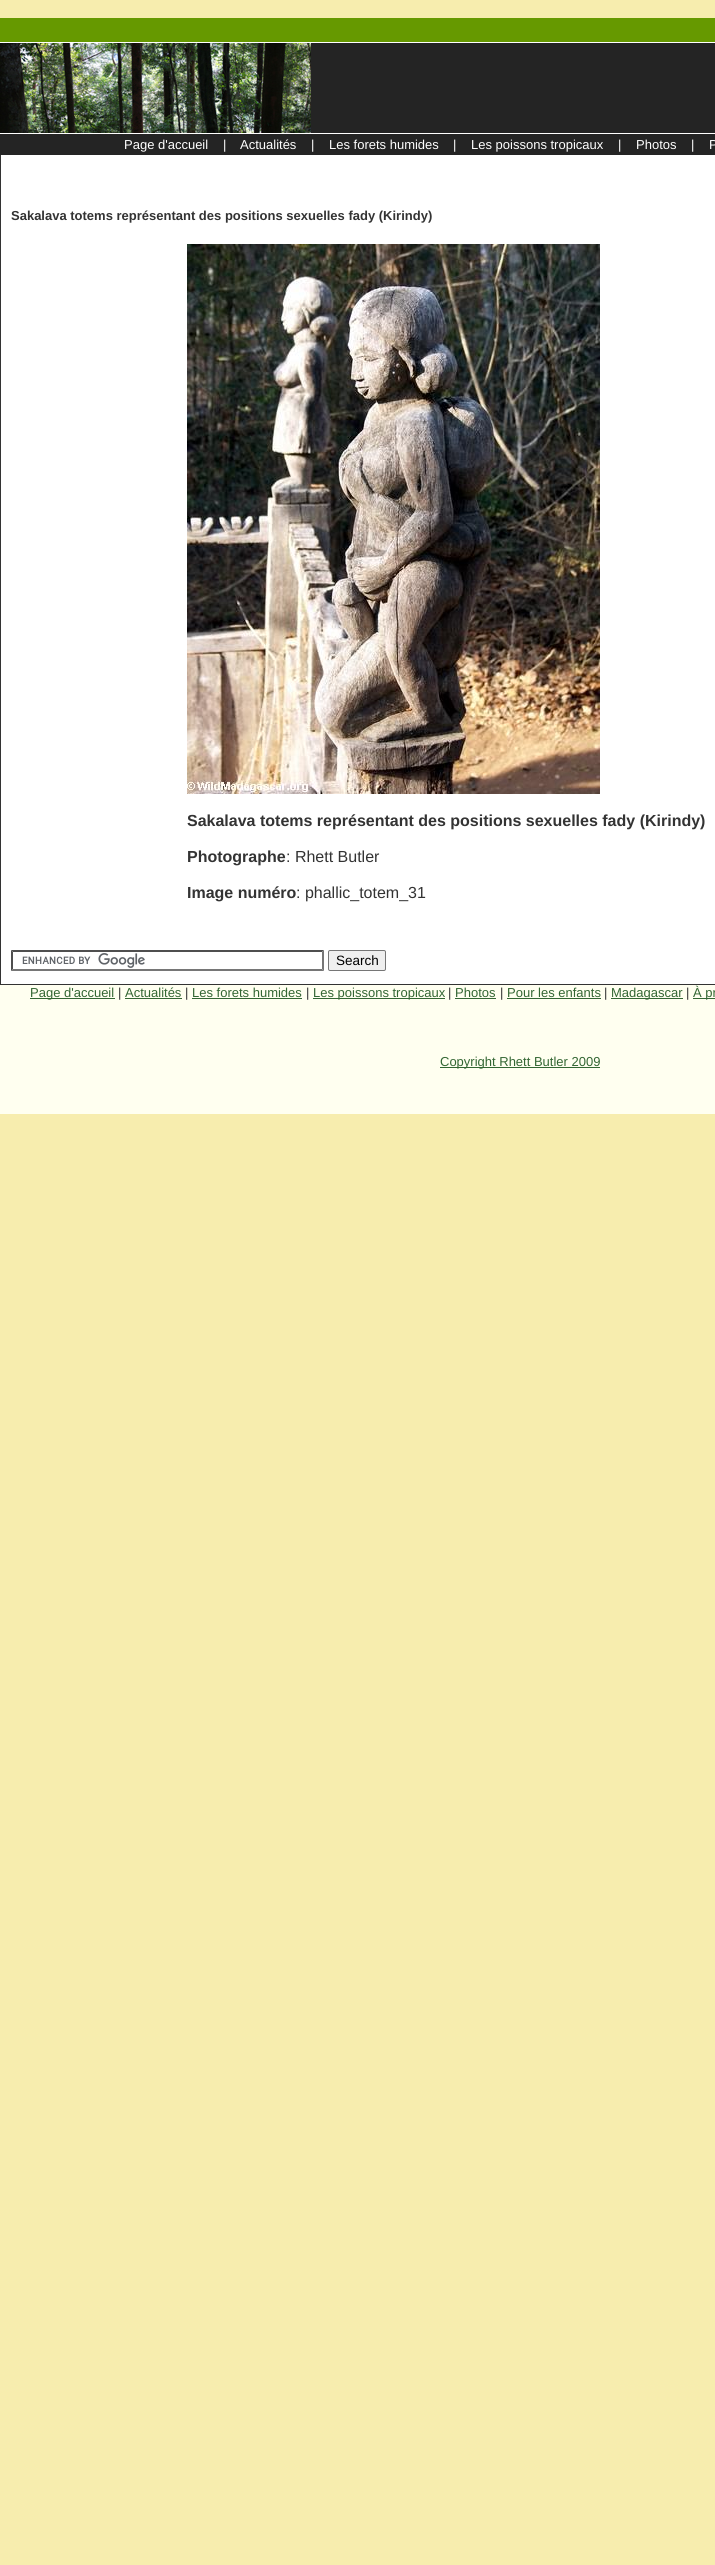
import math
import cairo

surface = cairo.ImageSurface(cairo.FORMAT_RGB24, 715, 2565)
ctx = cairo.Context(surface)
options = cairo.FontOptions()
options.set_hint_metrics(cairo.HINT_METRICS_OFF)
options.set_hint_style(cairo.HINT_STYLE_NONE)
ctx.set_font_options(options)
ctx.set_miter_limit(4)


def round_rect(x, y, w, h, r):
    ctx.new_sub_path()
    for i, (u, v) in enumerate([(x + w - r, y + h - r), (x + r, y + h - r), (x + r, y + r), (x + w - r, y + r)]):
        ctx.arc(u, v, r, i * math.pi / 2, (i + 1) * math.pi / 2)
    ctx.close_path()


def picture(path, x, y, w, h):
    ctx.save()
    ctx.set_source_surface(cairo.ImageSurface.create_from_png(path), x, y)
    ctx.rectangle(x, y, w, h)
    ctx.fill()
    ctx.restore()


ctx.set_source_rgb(0.965, 0.929, 0.682)
ctx.paint()
ctx.set_source_rgb(0.4, 0.6, 0)
ctx.rectangle(0, 18, 715, 24)
ctx.fill()
ctx.set_source_rgb(1, 1, 1)
ctx.rectangle(0, 42, 715, 1)
ctx.fill()
ctx.set_source_rgb(0.141, 0.141, 0.141)
ctx.rectangle(311, 43, 404, 90)
ctx.fill()
picture("img1.png", 0, 43, 311, 90)
ctx.set_source_rgb(1, 1, 1)
ctx.rectangle(0, 133, 715, 1)
ctx.fill()
ctx.set_source_rgb(0.141, 0.141, 0.141)
ctx.rectangle(0, 134, 715, 21)
ctx.fill()
ctx.select_font_face("Liberation Sans")
ctx.set_font_size(13)
ctx.set_source_rgb(1, 1, 1)
ctx.move_to(124, 149)
ctx.show_text("Page d'accueil")
ctx.move_to(223, 149)
ctx.show_text("|")
ctx.move_to(240, 149)
ctx.show_text("Actualités")
ctx.move_to(311, 149)
ctx.show_text("|")
ctx.move_to(329, 149)
ctx.show_text("Les forets humides")
ctx.move_to(453, 149)
ctx.show_text("|")
ctx.move_to(471, 149)
ctx.show_text("Les poissons tropicaux")
ctx.move_to(618, 149)
ctx.show_text("|")
ctx.move_to(636, 149)
ctx.show_text("Photos")
ctx.move_to(691, 149)
ctx.show_text("|")
ctx.move_to(709, 149)
ctx.show_text("P")
ctx.rectangle(1, 155, 714, 829)
ctx.fill()
ctx.set_source_rgb(0.2, 0.2, 0.2)
ctx.rectangle(0, 155, 1, 829)
ctx.fill()
ctx.select_font_face("Liberation Sans", cairo.FONT_SLANT_NORMAL, cairo.FONT_WEIGHT_BOLD)
ctx.move_to(11, 220)
ctx.show_text("Sakalava totems représentant des positions sexuelles fady (Kirindy)")
picture("img2.png", 187, 244, 413, 550)
ctx.set_font_size(16)
ctx.move_to(187, 826)
ctx.show_text("Sakalava totems représentant des positions sexuelles fady (Kirindy)")
ctx.move_to(187, 862)
ctx.show_text("Photographe")
ctx.select_font_face("Liberation Sans")
ctx.move_to(286, 862)
ctx.show_text(": Rhett Butler")
ctx.select_font_face("Liberation Sans", cairo.FONT_SLANT_NORMAL, cairo.FONT_WEIGHT_BOLD)
ctx.move_to(187, 898)
ctx.show_text("Image numéro")
ctx.select_font_face("Liberation Sans")
ctx.move_to(296, 898)
ctx.show_text(": phallic_totem_31")
picture("img3.png", 22, 953, 123, 15)
ctx.set_source_rgb(0.31, 0.31, 0.31)
ctx.new_path()
ctx.move_to(11, 950)
ctx.line_to(324, 950)
ctx.line_to(322, 952)
ctx.line_to(13, 952)
ctx.close_path()
ctx.fill()
ctx.set_source_rgb(0.463, 0.463, 0.463)
ctx.new_path()
ctx.move_to(324, 950)
ctx.line_to(324, 971)
ctx.line_to(322, 969)
ctx.line_to(322, 952)
ctx.close_path()
ctx.fill()
ctx.new_path()
ctx.move_to(324, 971)
ctx.line_to(11, 971)
ctx.line_to(13, 969)
ctx.line_to(322, 969)
ctx.close_path()
ctx.fill()
ctx.set_source_rgb(0.31, 0.31, 0.31)
ctx.new_path()
ctx.move_to(11, 971)
ctx.line_to(11, 950)
ctx.line_to(13, 952)
ctx.line_to(13, 969)
ctx.close_path()
ctx.fill()
ctx.set_source_rgb(0.937, 0.937, 0.937)
round_rect(328.5, 950.5, 57, 20, 1.5)
ctx.fill_preserve()
ctx.set_source_rgb(0.463, 0.463, 0.463)
ctx.set_line_width(1)
ctx.stroke()
ctx.set_font_size(13.5)
ctx.set_source_rgb(0, 0, 0)
ctx.move_to(336, 965)
ctx.show_text("Search")
ctx.set_source_rgb(0.2, 0.2, 0.2)
ctx.rectangle(0, 984, 715, 1)
ctx.fill()
ctx.set_source_rgb(1, 1, 0.941)
ctx.rectangle(0, 985, 715, 129)
ctx.fill()
ctx.set_source_rgb(0.2, 0.4, 0.2)
ctx.rectangle(30, 998, 85, 1)
ctx.fill()
ctx.set_font_size(13)
ctx.move_to(30, 997)
ctx.show_text("Page d'accueil")
ctx.set_source_rgb(0.2, 0.2, 0.2)
ctx.move_to(118, 997)
ctx.show_text("|")
ctx.set_source_rgb(0.2, 0.4, 0.2)
ctx.move_to(125, 997)
ctx.show_text("Actualités")
ctx.rectangle(125, 998, 57, 1)
ctx.fill()
ctx.set_source_rgb(0.2, 0.2, 0.2)
ctx.move_to(185, 997)
ctx.show_text("|")
ctx.set_source_rgb(0.2, 0.4, 0.2)
ctx.move_to(192, 997)
ctx.show_text("Les forets humides")
ctx.rectangle(192, 998, 110, 1)
ctx.fill()
ctx.set_source_rgb(0.2, 0.2, 0.2)
ctx.move_to(306, 997)
ctx.show_text("|")
ctx.set_source_rgb(0.2, 0.4, 0.2)
ctx.rectangle(313, 998, 132, 1)
ctx.fill()
ctx.move_to(313, 997)
ctx.show_text("Les poissons tropicaux")
ctx.set_source_rgb(0.2, 0.2, 0.2)
ctx.move_to(448, 997)
ctx.show_text("|")
ctx.set_source_rgb(0.2, 0.4, 0.2)
ctx.move_to(455, 997)
ctx.show_text("Photos")
ctx.rectangle(455, 998, 41, 1)
ctx.fill()
ctx.set_source_rgb(0.2, 0.2, 0.2)
ctx.move_to(500, 997)
ctx.show_text("|")
ctx.set_source_rgb(0.2, 0.4, 0.2)
ctx.move_to(507, 997)
ctx.show_text("Pour les enfants")
ctx.rectangle(507, 998, 94, 1)
ctx.fill()
ctx.set_source_rgb(0.2, 0.2, 0.2)
ctx.move_to(604, 997)
ctx.show_text("|")
ctx.set_source_rgb(0.2, 0.4, 0.2)
ctx.rectangle(611, 998, 72, 1)
ctx.fill()
ctx.move_to(611, 997)
ctx.show_text("Madagascar")
ctx.set_source_rgb(0.2, 0.2, 0.2)
ctx.move_to(686, 997)
ctx.show_text("|")
ctx.set_source_rgb(0.2, 0.4, 0.2)
ctx.rectangle(693, 998, 22, 1)
ctx.fill()
ctx.move_to(693, 997)
ctx.show_text("À pr")
ctx.rectangle(440, 1067, 160, 1)
ctx.fill()
ctx.move_to(440, 1066)
ctx.show_text("Copyright Rhett Butler 2009")
surface.write_to_png("page.png")
